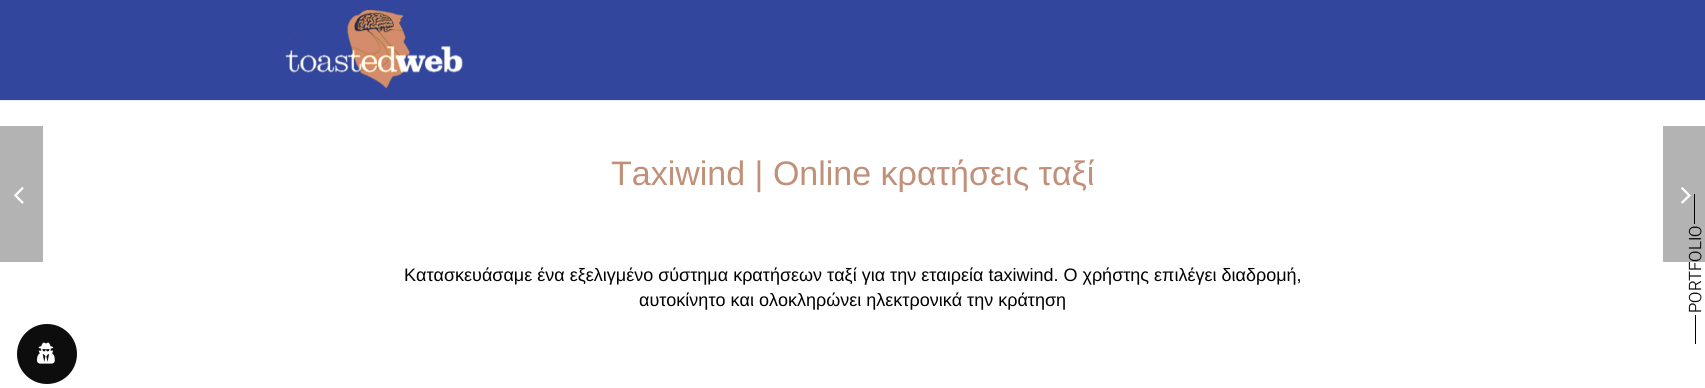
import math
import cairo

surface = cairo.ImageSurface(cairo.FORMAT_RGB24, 1705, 388)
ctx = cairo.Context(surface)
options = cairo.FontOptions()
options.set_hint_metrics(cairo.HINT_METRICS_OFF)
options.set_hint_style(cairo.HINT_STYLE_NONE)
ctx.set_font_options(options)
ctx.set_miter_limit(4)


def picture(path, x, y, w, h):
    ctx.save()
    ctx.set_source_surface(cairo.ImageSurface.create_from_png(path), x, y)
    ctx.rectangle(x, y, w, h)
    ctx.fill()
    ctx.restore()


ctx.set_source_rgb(1, 1, 1)
ctx.paint()
ctx.set_source_rgb(0.922, 0.922, 0.922)
ctx.rectangle(0, 100, 1705, 1)
ctx.fill()
ctx.set_source_rgb(0.192, 0.275, 0.612)
ctx.rectangle(0, 0, 1705, 100)
ctx.fill()
picture("img1.png", 283, 10, 181, 79)
ctx.set_source_rgb(0.702, 0.702, 0.702)
ctx.rectangle(0, 126, 43, 136)
ctx.fill()
picture("img2.png", 14, 187, 10, 17)
picture("img4.png", 1688, 194, 14, 150)
ctx.set_source_rgba(0, 0, 0, 0.3)
ctx.rectangle(1663, 126, 42, 136)
ctx.fill()
picture("img3.png", 1681, 187, 10, 17)
ctx.select_font_face("Liberation Sans")
ctx.set_font_size(34)
ctx.set_source_rgb(0.757, 0.565, 0.475)
ctx.move_to(611, 185)
ctx.show_text("Taxiwind | Online κρατήσεις ταξί")
ctx.set_font_size(18)
ctx.set_source_rgb(0, 0, 0)
ctx.move_to(404, 281)
ctx.show_text("Κατασκευάσαμε ένα εξελιγμένο σύστημα κρατήσεων ταξί για την εταιρεία taxiwind. Ο χρήστης επιλέγει διαδρομή,")
ctx.move_to(639, 306)
ctx.show_text("αυτοκίνητο και ολοκληρώνει ηλεκτρονικά την κράτηση")
ctx.set_source_rgb(0.051, 0.051, 0.051)
ctx.new_path()
ctx.arc(47, 354, 30, 0, 2 * math.pi)
ctx.fill()
picture("img5.png", 37, 342, 18, 22)
surface.write_to_png("page.png")
